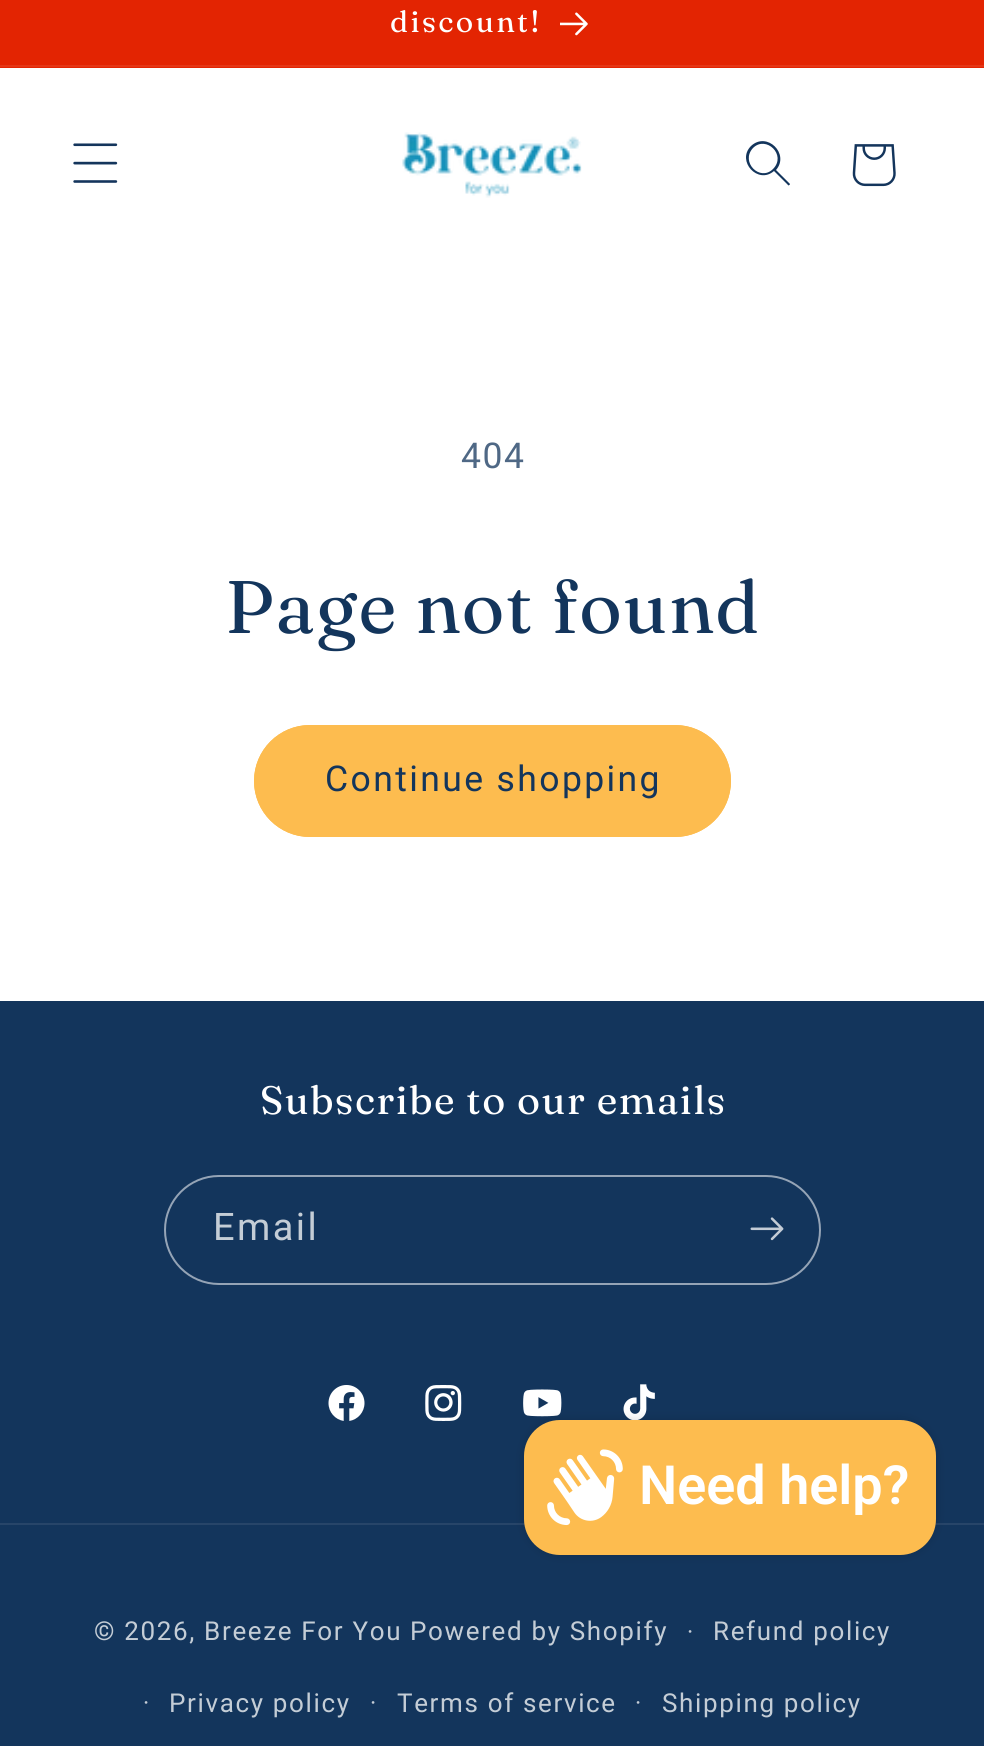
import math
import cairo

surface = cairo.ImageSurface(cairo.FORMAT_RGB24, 984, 1746)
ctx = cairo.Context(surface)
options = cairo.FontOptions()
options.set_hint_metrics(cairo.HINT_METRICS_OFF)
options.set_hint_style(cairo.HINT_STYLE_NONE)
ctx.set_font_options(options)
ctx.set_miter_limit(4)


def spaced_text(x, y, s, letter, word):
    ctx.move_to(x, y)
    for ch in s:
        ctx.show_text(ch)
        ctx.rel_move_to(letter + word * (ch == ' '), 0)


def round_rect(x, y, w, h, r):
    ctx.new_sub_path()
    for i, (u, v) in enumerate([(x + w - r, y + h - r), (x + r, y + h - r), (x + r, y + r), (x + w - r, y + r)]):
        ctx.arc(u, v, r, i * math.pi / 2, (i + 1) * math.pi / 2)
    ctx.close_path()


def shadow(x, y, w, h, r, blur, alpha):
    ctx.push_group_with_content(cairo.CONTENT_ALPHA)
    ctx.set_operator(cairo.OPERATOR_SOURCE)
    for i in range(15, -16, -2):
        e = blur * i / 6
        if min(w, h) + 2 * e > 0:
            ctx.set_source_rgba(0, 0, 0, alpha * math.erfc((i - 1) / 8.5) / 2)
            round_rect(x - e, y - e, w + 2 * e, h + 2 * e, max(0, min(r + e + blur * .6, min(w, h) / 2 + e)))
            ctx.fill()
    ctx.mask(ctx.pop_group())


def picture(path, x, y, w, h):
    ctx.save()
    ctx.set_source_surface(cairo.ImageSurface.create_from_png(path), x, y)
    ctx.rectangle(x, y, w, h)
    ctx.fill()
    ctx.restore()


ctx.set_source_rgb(1, 1, 1)
ctx.paint()
ctx.set_source_rgb(0.89, 0.141, 0.008)
ctx.rectangle(0, 0, 984, 68)
ctx.fill()
ctx.set_source_rgb(0.898, 0.212, 0.086)
ctx.rectangle(0, 65, 984, 2)
ctx.fill()
ctx.select_font_face("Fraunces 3")
ctx.set_font_size(29.75)
ctx.set_source_rgb(1, 1, 1)
spaced_text(390, 32, "discount!", 2.4, 0)
picture("img1.png", 560, 12, 28, 24)
picture("img2.png", 73, 143, 45, 40)
picture("img3.png", 402, 132, 180, 66)
ctx.set_source_rgb(0.078, 0.208, 0.361)
ctx.set_fill_rule(cairo.FILL_RULE_EVEN_ODD)
ctx.new_path()
ctx.move_to(773, 169)
ctx.curve_to(760, 182, 740, 162, 753, 148)
ctx.curve_to(766, 135, 787, 155, 773, 169)
ctx.move_to(774, 171)
ctx.curve_to(758, 185, 736, 161, 751, 146)
ctx.curve_to(767, 131, 790, 154, 776, 170)
ctx.line_to(790, 184)
ctx.curve_to(790, 185, 788, 186, 788, 185)
ctx.close_path()
ctx.fill()
picture("img4.png", 852, 144, 44, 43)
ctx.select_font_face("Roboto")
ctx.set_font_size(35.5)
ctx.set_source_rgb(0.31, 0.408, 0.522)
spaced_text(461, 468, "404", 1.5, 0)
ctx.select_font_face("Fraunces")
ctx.set_font_size(74.25)
ctx.set_source_rgb(0.078, 0.208, 0.361)
spaced_text(225, 633, "Page not found", 1.5, 0)
ctx.set_source_rgb(0.992, 0.737, 0.31)
round_rect(254, 725, 477, 112, 56)
ctx.fill()
round_rect(255, 726, 475, 110, 55)
ctx.stroke()
ctx.select_font_face("Roboto")
ctx.set_font_size(35.5)
ctx.set_source_rgb(0.078, 0.208, 0.361)
spaced_text(325, 791, "Continue shopping", 2.4, 0)
ctx.rectangle(0, 1001, 984, 745)
ctx.fill()
ctx.select_font_face("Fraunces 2")
ctx.set_font_size(39.6)
ctx.set_source_rgb(1, 1, 1)
spaced_text(260, 1114, "Subscribe to our emails", 1.5, 0)
round_rect(165, 1176, 655, 108, 54)
ctx.set_source_rgb(0.584, 0.643, 0.714)
ctx.stroke()
ctx.select_font_face("Roboto")
ctx.set_font_size(38)
ctx.set_source_rgb(0.769, 0.804, 0.839)
spaced_text(213, 1240, "Email", 2.4, 0)
picture("img5.png", 750, 1217, 34, 24)
picture("img6.png", 328, 1385, 37, 36)
picture("img7.png", 425, 1385, 37, 36)
picture("img8.png", 523, 1389, 39, 28)
picture("img9.png", 623, 1384, 32, 36)
ctx.set_source_rgb(0.153, 0.271, 0.412)
ctx.rectangle(0, 1523, 984, 2)
ctx.fill()
ctx.set_font_size(24)
ctx.set_source_rgb(0.769, 0.804, 0.839)
spaced_text(687, 1640, "·", 1.65, 0)
ctx.set_font_size(26)
spaced_text(713, 1640, "Refund policy", 1.65, 0)
ctx.set_font_size(24)
spaced_text(143, 1711, "·", 1.65, 0)
ctx.set_font_size(26)
spaced_text(169, 1712, "Privacy policy", 1.65, 0)
ctx.set_font_size(24)
spaced_text(370, 1711, "·", 1.65, 0)
ctx.set_font_size(26)
spaced_text(397, 1712, "Terms of service", 1.65, 0)
ctx.set_font_size(24)
spaced_text(635, 1711, "·", 1.65, 0)
ctx.set_font_size(26)
spaced_text(662, 1712, "Shipping policy", 1.65, 0)
spaced_text(94, 1640, "© 2026, Breeze For You", 1.65, 0)
spaced_text(410, 1640, "Powered by Shopify", 1.65, 0)
ctx.set_source_rgb(0, 0, 0)
shadow(524, 1420, 412, 135, 36, 5.5, 0.15)
ctx.set_source_rgb(0.992, 0.737, 0.31)
round_rect(524, 1420, 412, 135, 36)
ctx.fill()
picture("img10.png", 547, 1449, 76, 77)
ctx.select_font_face("Roboto SemiBold")
ctx.set_font_size(54)
ctx.set_source_rgb(1, 1, 1)
ctx.move_to(639, 1504)
ctx.show_text("Need help?")
surface.write_to_png("page.png")
